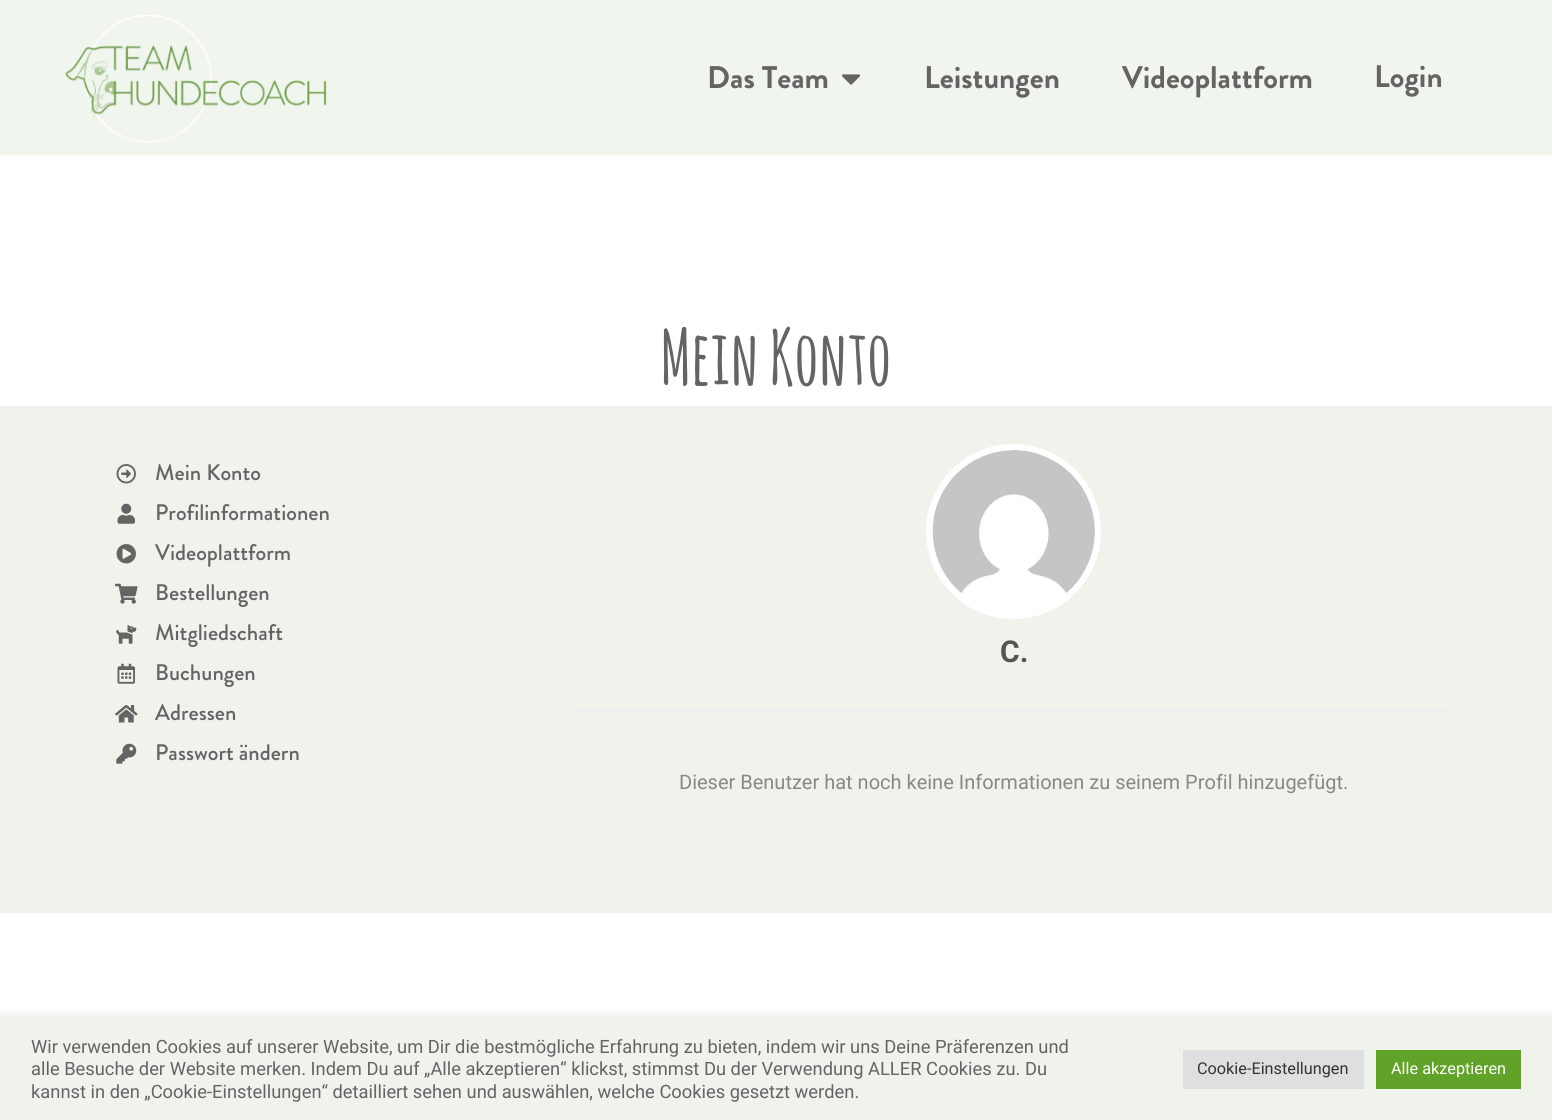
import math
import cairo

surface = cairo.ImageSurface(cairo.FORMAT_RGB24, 1552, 1120)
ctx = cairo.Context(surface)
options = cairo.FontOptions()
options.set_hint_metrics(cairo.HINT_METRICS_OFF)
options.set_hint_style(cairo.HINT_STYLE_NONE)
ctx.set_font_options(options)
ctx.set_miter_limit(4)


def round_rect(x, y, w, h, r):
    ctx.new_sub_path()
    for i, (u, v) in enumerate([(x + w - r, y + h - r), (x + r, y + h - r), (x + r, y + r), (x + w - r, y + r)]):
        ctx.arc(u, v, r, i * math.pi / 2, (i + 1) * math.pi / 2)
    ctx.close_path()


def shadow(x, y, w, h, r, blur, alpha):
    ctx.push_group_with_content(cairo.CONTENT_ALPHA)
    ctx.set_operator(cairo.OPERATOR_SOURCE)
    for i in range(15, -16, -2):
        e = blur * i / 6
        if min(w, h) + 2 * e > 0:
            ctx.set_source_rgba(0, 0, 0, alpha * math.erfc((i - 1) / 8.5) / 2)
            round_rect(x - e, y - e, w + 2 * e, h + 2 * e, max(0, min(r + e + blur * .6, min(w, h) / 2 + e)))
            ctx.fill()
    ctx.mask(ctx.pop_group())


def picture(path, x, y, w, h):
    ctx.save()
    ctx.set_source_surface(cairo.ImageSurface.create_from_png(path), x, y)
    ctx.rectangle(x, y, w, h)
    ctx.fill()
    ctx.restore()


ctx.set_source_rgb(1, 1, 1)
ctx.paint()
ctx.set_source_rgb(0.941, 0.961, 0.929)
ctx.rectangle(0, 0, 1552, 155)
ctx.fill()
picture("img1.png", 65, 15, 262, 128)
ctx.select_font_face("Brandon Grotesque", cairo.FONT_SLANT_NORMAL, cairo.FONT_WEIGHT_BOLD)
ctx.set_font_size(31.25)
ctx.set_source_rgb(0.388, 0.396, 0.396)
ctx.move_to(707, 88)
ctx.show_text("Das Team")
picture("img2.png", 842, 74, 18, 11)
ctx.move_to(924, 88)
ctx.show_text("Leistungen")
ctx.move_to(1122, 88)
ctx.show_text("Videoplattform")
ctx.move_to(1374, 87)
ctx.show_text("Login")
ctx.select_font_face("Amatic SC", cairo.FONT_SLANT_NORMAL, cairo.FONT_WEIGHT_BOLD)
ctx.set_font_size(75)
ctx.move_to(660, 385)
ctx.show_text("Mein Konto")
ctx.set_source_rgb(0.937, 0.953, 0.918)
ctx.rectangle(0, 406, 1552, 507)
ctx.fill()
picture("img3.png", 116, 464, 20, 20)
ctx.select_font_face("Brandon Grotesque Medium")
ctx.set_font_size(22.5)
ctx.set_source_rgb(0.388, 0.396, 0.396)
ctx.move_to(155, 480)
ctx.show_text("Mein Konto")
picture("img4.png", 117, 503, 18, 21)
ctx.move_to(155, 520)
ctx.show_text("Profilinformationen")
picture("img5.png", 116, 544, 20, 20)
ctx.move_to(155, 560)
ctx.show_text("Videoplattform")
picture("img6.png", 115, 583, 23, 21)
ctx.move_to(155, 600)
ctx.show_text("Bestellungen")
picture("img7.png", 116, 625, 21, 19)
ctx.move_to(155, 640)
ctx.show_text("Mitgliedschaft")
picture("img8.png", 117, 663, 18, 21)
ctx.move_to(155, 680)
ctx.show_text("Buchungen")
picture("img9.png", 115, 705, 23, 18)
ctx.move_to(155, 720)
ctx.show_text("Adressen")
picture("img10.png", 116, 743, 21, 21)
ctx.move_to(155, 760)
ctx.show_text("Passwort ändern")
ctx.set_source_rgb(0.933, 0.933, 0.933)
ctx.rectangle(576, 709, 875, 3)
ctx.fill()
ctx.set_source_rgb(1, 1, 1)
ctx.arc(1013.5, 531.5, 84.5, 0, 2 * math.pi)
ctx.fill_preserve()
ctx.set_line_width(6)
ctx.stroke()
picture("img11.png", 932, 450, 163, 143)
ctx.select_font_face("Roboto", cairo.FONT_SLANT_NORMAL, cairo.FONT_WEIGHT_BOLD)
ctx.set_font_size(30)
ctx.set_source_rgb(0.333, 0.333, 0.333)
ctx.move_to(1000, 662)
ctx.show_text("C.")
ctx.select_font_face("Roboto")
ctx.set_font_size(20)
ctx.set_source_rgb(0.533, 0.533, 0.533)
ctx.move_to(679, 789)
ctx.show_text("Dieser Benutzer hat noch keine Informationen zu seinem Profil hinzugefügt.")
ctx.set_source_rgb(0.675, 0.671, 0.671)
shadow(0, 1016, 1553, 103, 0, 6, 0.3)
ctx.set_source_rgb(0.937, 0.953, 0.918)
ctx.rectangle(0, 1018, 1552, 102)
ctx.fill()
ctx.set_font_size(18.33)
ctx.set_source_rgb(0.388, 0.396, 0.396)
ctx.move_to(31, 1053)
ctx.show_text("Wir verwenden Cookies auf unserer Website, um Dir die bestmögliche Erfahrung zu bieten, indem wir uns Deine Präferenzen und")
ctx.move_to(31, 1075)
ctx.show_text("alle Besuche der Website merken. Indem Du auf „Alle akzeptieren“ klickst, stimmst Du der Verwendung ALLER Cookies zu. Du")
ctx.move_to(31, 1098)
ctx.show_text("kannst in den „Cookie-Einstellungen“ detailliert sehen und auswählen, welche Cookies gesetzt werden.")
ctx.set_source_rgb(0.871, 0.875, 0.878)
ctx.rectangle(1183, 1050, 181, 39)
ctx.fill()
ctx.set_font_size(16.25)
ctx.set_source_rgb(0.2, 0.2, 0.2)
ctx.move_to(1197, 1074)
ctx.show_text("Cookie-Einstellungen")
ctx.set_source_rgb(0.38, 0.635, 0.161)
ctx.rectangle(1376, 1050, 145, 39)
ctx.fill()
ctx.set_source_rgb(1, 1, 1)
ctx.move_to(1391, 1074)
ctx.show_text("Alle akzeptieren")
surface.write_to_png("page.png")
